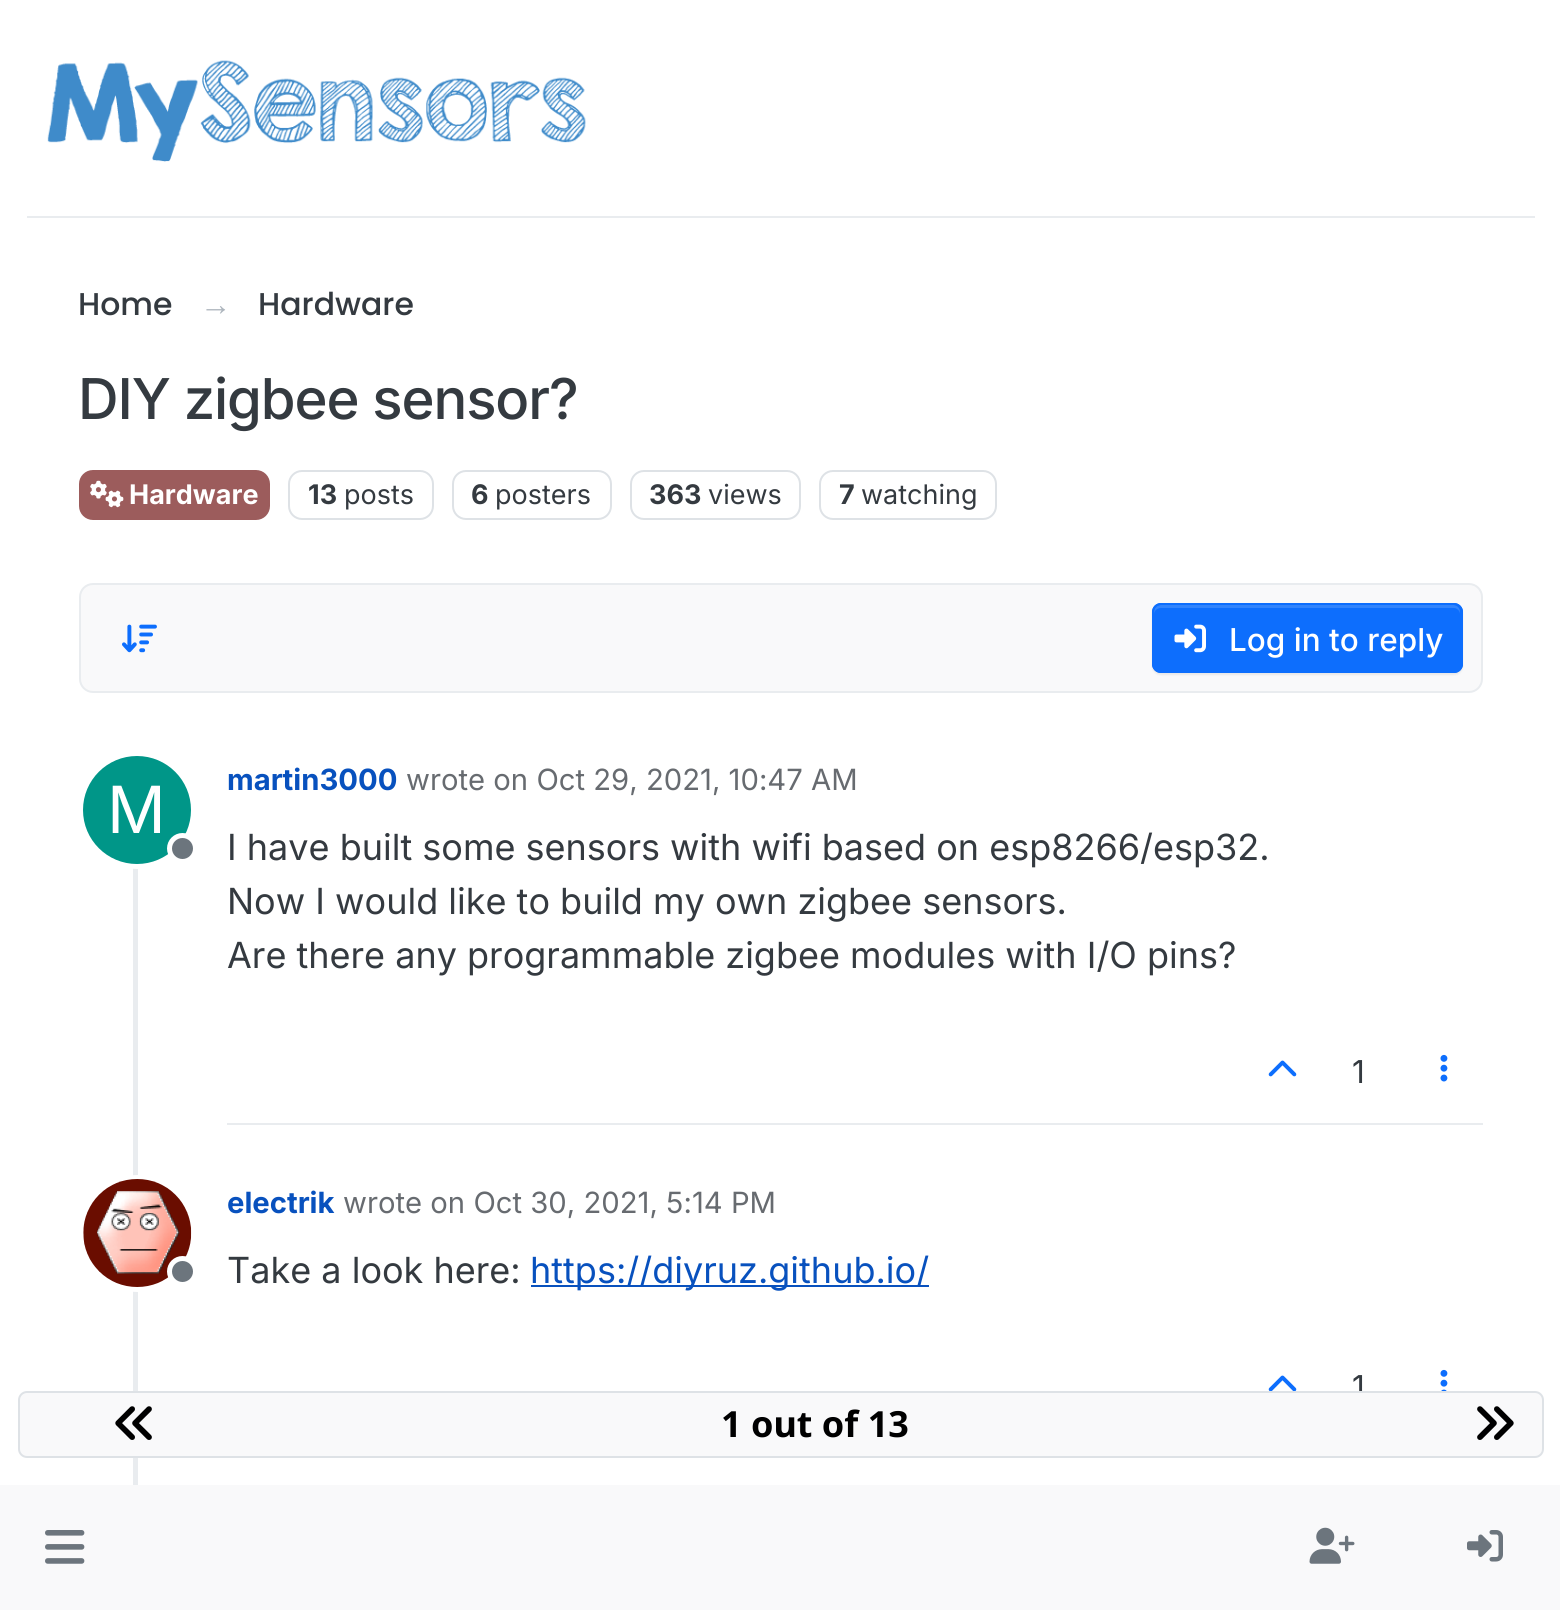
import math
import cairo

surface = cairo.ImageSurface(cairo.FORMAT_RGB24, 1560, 1610)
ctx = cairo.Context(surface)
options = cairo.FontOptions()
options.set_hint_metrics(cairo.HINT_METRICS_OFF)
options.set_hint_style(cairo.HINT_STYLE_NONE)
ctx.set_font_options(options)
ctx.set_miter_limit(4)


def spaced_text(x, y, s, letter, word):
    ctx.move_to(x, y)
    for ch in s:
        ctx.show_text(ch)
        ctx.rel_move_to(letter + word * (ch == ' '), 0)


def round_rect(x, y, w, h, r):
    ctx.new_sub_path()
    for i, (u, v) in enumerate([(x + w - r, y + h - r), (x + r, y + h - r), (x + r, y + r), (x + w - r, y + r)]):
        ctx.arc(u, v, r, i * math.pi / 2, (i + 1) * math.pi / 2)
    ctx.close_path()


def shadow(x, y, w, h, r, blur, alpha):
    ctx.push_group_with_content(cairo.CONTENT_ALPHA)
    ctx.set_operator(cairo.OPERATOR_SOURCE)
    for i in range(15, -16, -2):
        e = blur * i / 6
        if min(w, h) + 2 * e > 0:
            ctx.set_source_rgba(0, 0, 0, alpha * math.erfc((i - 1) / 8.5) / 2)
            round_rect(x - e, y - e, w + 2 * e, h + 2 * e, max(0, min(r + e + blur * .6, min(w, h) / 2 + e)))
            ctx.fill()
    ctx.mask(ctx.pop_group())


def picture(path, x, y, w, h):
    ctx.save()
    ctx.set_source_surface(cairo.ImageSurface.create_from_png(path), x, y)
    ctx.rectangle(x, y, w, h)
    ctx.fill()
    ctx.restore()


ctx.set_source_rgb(1, 1, 1)
ctx.paint()
ctx.set_source_rgb(0.914, 0.925, 0.937)
ctx.rectangle(27, 216, 1508, 2)
ctx.fill()
picture("img1.png", 47, 60, 539, 102)
ctx.select_font_face("Poppins Medium")
ctx.set_font_size(31.5)
ctx.set_source_rgb(0.204, 0.227, 0.251)
ctx.move_to(78, 315)
ctx.show_text("Home")
ctx.select_font_face("Liberation Sans")
ctx.set_source_rgb(0.678, 0.71, 0.741)
ctx.move_to(200, 315)
ctx.show_text("→")
ctx.select_font_face("Poppins Medium")
ctx.set_source_rgb(0.204, 0.227, 0.251)
ctx.move_to(258, 315)
ctx.show_text("Hardware")
ctx.select_font_face("Inter Medium")
ctx.set_font_size(56.25)
spaced_text(78, 419, "DIY zigbee sensor?", -1.1, 0)
ctx.set_source_rgb(0.612, 0.361, 0.361)
round_rect(80, 471, 189, 48, 13)
ctx.fill_preserve()
ctx.stroke()
picture("img2.png", 90, 480, 34, 28)
ctx.select_font_face("Inter", cairo.FONT_SLANT_NORMAL, cairo.FONT_WEIGHT_BOLD)
ctx.set_font_size(27)
ctx.set_source_rgb(1, 1, 1)
ctx.move_to(129, 504)
ctx.show_text("Hardware")
round_rect(289, 471, 144, 48, 13)
ctx.set_source_rgb(0.871, 0.886, 0.902)
ctx.stroke()
ctx.set_source_rgb(0.204, 0.227, 0.251)
ctx.move_to(308, 504)
ctx.show_text("13")
ctx.select_font_face("Inter")
ctx.move_to(344, 504)
ctx.show_text("posts")
round_rect(453, 471, 158, 48, 13)
ctx.set_source_rgb(0.871, 0.886, 0.902)
ctx.stroke()
ctx.select_font_face("Inter", cairo.FONT_SLANT_NORMAL, cairo.FONT_WEIGHT_BOLD)
ctx.set_source_rgb(0.204, 0.227, 0.251)
ctx.move_to(471, 504)
ctx.show_text("6")
ctx.select_font_face("Inter")
ctx.move_to(495, 504)
ctx.show_text("posters")
round_rect(631, 471, 169, 48, 13)
ctx.set_source_rgb(0.871, 0.886, 0.902)
ctx.stroke()
ctx.select_font_face("Inter", cairo.FONT_SLANT_NORMAL, cairo.FONT_WEIGHT_BOLD)
ctx.set_source_rgb(0.204, 0.227, 0.251)
ctx.move_to(649, 504)
ctx.show_text("363")
ctx.select_font_face("Inter")
ctx.move_to(708, 504)
ctx.show_text("views")
round_rect(820, 471, 176, 48, 13)
ctx.set_source_rgb(0.871, 0.886, 0.902)
ctx.stroke()
ctx.select_font_face("Inter", cairo.FONT_SLANT_NORMAL, cairo.FONT_WEIGHT_BOLD)
ctx.set_source_rgb(0.204, 0.227, 0.251)
ctx.move_to(839, 504)
ctx.show_text("7")
ctx.select_font_face("Inter")
ctx.move_to(861, 504)
ctx.show_text("watching")
ctx.set_source_rgb(0.973, 0.976, 0.98)
round_rect(80, 584, 1402, 108, 13)
ctx.fill_preserve()
ctx.set_source_rgb(0.914, 0.925, 0.937)
ctx.stroke()
picture("img3.png", 122, 624, 35, 29)
ctx.set_source_rgb(0, 0, 0)
shadow(1152, 605, 311, 70, 9, 1, 0.07)
ctx.set_source_rgb(0.051, 0.431, 0.992)
round_rect(1152, 603, 311, 70, 9)
ctx.fill()
ctx.set_source_rgb(0.192, 0.518, 0.992)
ctx.new_path()
ctx.move_to(1161, 608)
ctx.line_to(1454, 608)
ctx.curve_to(1457, 608, 1460, 611, 1460, 614)
ctx.line_to(1460, 612)
ctx.curve_to(1460, 608, 1457, 605, 1453, 605)
ctx.line_to(1161, 605)
ctx.curve_to(1157, 605, 1154, 608, 1154, 612)
ctx.line_to(1154, 614)
ctx.curve_to(1154, 611, 1157, 608, 1161, 608)
ctx.close_path()
ctx.fill()
round_rect(1153, 604, 309, 68, 8)
ctx.set_source_rgb(0.051, 0.431, 0.992)
ctx.stroke()
picture("img4.png", 1174, 624, 32, 29)
ctx.select_font_face("Inter Medium")
ctx.set_font_size(31.5)
ctx.set_source_rgb(1, 1, 1)
ctx.move_to(1229, 651)
ctx.show_text("Log in to reply")
ctx.set_source_rgb(0.914, 0.925, 0.937)
ctx.rectangle(133, 863, 5, 528)
ctx.fill()
ctx.arc(137.5, 810.5, 56, 0, 2 * math.pi)
ctx.set_source_rgb(1, 1, 1)
ctx.set_line_width(5)
ctx.stroke()
ctx.set_source_rgb(0, 0.588, 0.533)
ctx.arc(137, 810, 54, 0, 2 * math.pi)
ctx.fill()
ctx.select_font_face("Inter")
ctx.set_font_size(65)
ctx.set_source_rgb(1, 1, 1)
ctx.move_to(107, 833)
ctx.show_text("M")
ctx.set_source_rgb(0.424, 0.459, 0.49)
ctx.new_path()
ctx.arc(182.5, 848.5, 13, 0, 2 * math.pi)
ctx.fill_preserve()
ctx.set_source_rgb(1, 1, 1)
ctx.stroke()
ctx.select_font_face("Inter", cairo.FONT_SLANT_NORMAL, cairo.FONT_WEIGHT_BOLD)
ctx.set_font_size(29.25)
ctx.set_source_rgb(0.035, 0.318, 0.745)
ctx.move_to(227, 790)
ctx.show_text("martin3000")
ctx.select_font_face("Inter")
ctx.set_source_rgb(0.404, 0.42, 0.439)
ctx.move_to(406, 790)
ctx.show_text("wrote on Oct 29, 2021, 10:47 AM")
ctx.set_font_size(36)
ctx.set_source_rgb(0.204, 0.227, 0.251)
ctx.move_to(227, 860)
ctx.show_text("I have built some sensors with wifi based on esp8266/esp32.")
ctx.move_to(227, 914)
ctx.show_text("Now I would like to build my own zigbee sensors.")
ctx.move_to(227, 968)
ctx.show_text("Are there any programmable zigbee modules with I/O pins?")
ctx.set_source_rgb(0.914, 0.925, 0.937)
ctx.rectangle(227, 1123, 1256, 2)
ctx.fill()
picture("img5.png", 1268, 1060, 29, 17)
ctx.set_font_size(31.5)
ctx.set_source_rgb(0.204, 0.227, 0.251)
ctx.move_to(1352, 1083)
ctx.show_text("1")
picture("img6.png", 1440, 1054, 8, 28)
ctx.arc(137.5, 1233.5, 56, 0, 2 * math.pi)
ctx.set_source_rgb(1, 1, 1)
ctx.stroke()
picture("img7.png", 83, 1179, 109, 108)
ctx.set_source_rgb(0.424, 0.459, 0.49)
ctx.arc(182.5, 1271.5, 13, 0, 2 * math.pi)
ctx.fill_preserve()
ctx.set_source_rgb(1, 1, 1)
ctx.stroke()
ctx.select_font_face("Inter", cairo.FONT_SLANT_NORMAL, cairo.FONT_WEIGHT_BOLD)
ctx.set_font_size(29.25)
ctx.set_source_rgb(0.035, 0.318, 0.745)
ctx.move_to(227, 1213)
ctx.show_text("electrik")
ctx.select_font_face("Inter")
ctx.set_source_rgb(0.404, 0.42, 0.439)
ctx.move_to(343, 1213)
ctx.show_text("wrote on Oct 30, 2021, 5:14 PM")
ctx.set_font_size(36)
ctx.set_source_rgb(0.204, 0.227, 0.251)
ctx.move_to(227, 1283)
ctx.show_text("Take a look here:")
ctx.set_source_rgb(0.035, 0.318, 0.745)
ctx.rectangle(531, 1285, 398, 2)
ctx.fill()
ctx.move_to(530, 1283)
ctx.show_text("https://diyruz.github.io/")
picture("img8.png", 1268, 1375, 29, 16)
ctx.set_font_size(31.5)
ctx.set_source_rgb(0.204, 0.227, 0.251)
ctx.move_to(1352, 1398)
ctx.show_text("1")
picture("img9.png", 1440, 1369, 8, 22)
ctx.set_source_rgb(0.914, 0.925, 0.937)
ctx.rectangle(133, 1458, 5, 27)
ctx.fill()
ctx.set_source_rgb(0.973, 0.976, 0.98)
round_rect(19, 1392, 1524, 65, 8)
ctx.fill_preserve()
ctx.set_source_rgb(0.871, 0.886, 0.902)
ctx.set_line_width(2)
ctx.stroke()
picture("img10.png", 115, 1406, 37, 34)
ctx.select_font_face("Noto Sans", cairo.FONT_SLANT_NORMAL, cairo.FONT_WEIGHT_BOLD)
ctx.set_font_size(36)
ctx.set_source_rgb(0, 0, 0)
ctx.move_to(721, 1437)
ctx.show_text("1 out of 13")
picture("img11.png", 1477, 1406, 37, 34)
ctx.set_source_rgb(0.973, 0.976, 0.98)
ctx.rectangle(0, 1485, 1560, 125)
ctx.fill()
picture("img12.png", 45, 1530, 40, 34)
picture("img13.png", 1309, 1527, 46, 37)
picture("img14.png", 1467, 1530, 36, 32)
surface.write_to_png("page.png")
